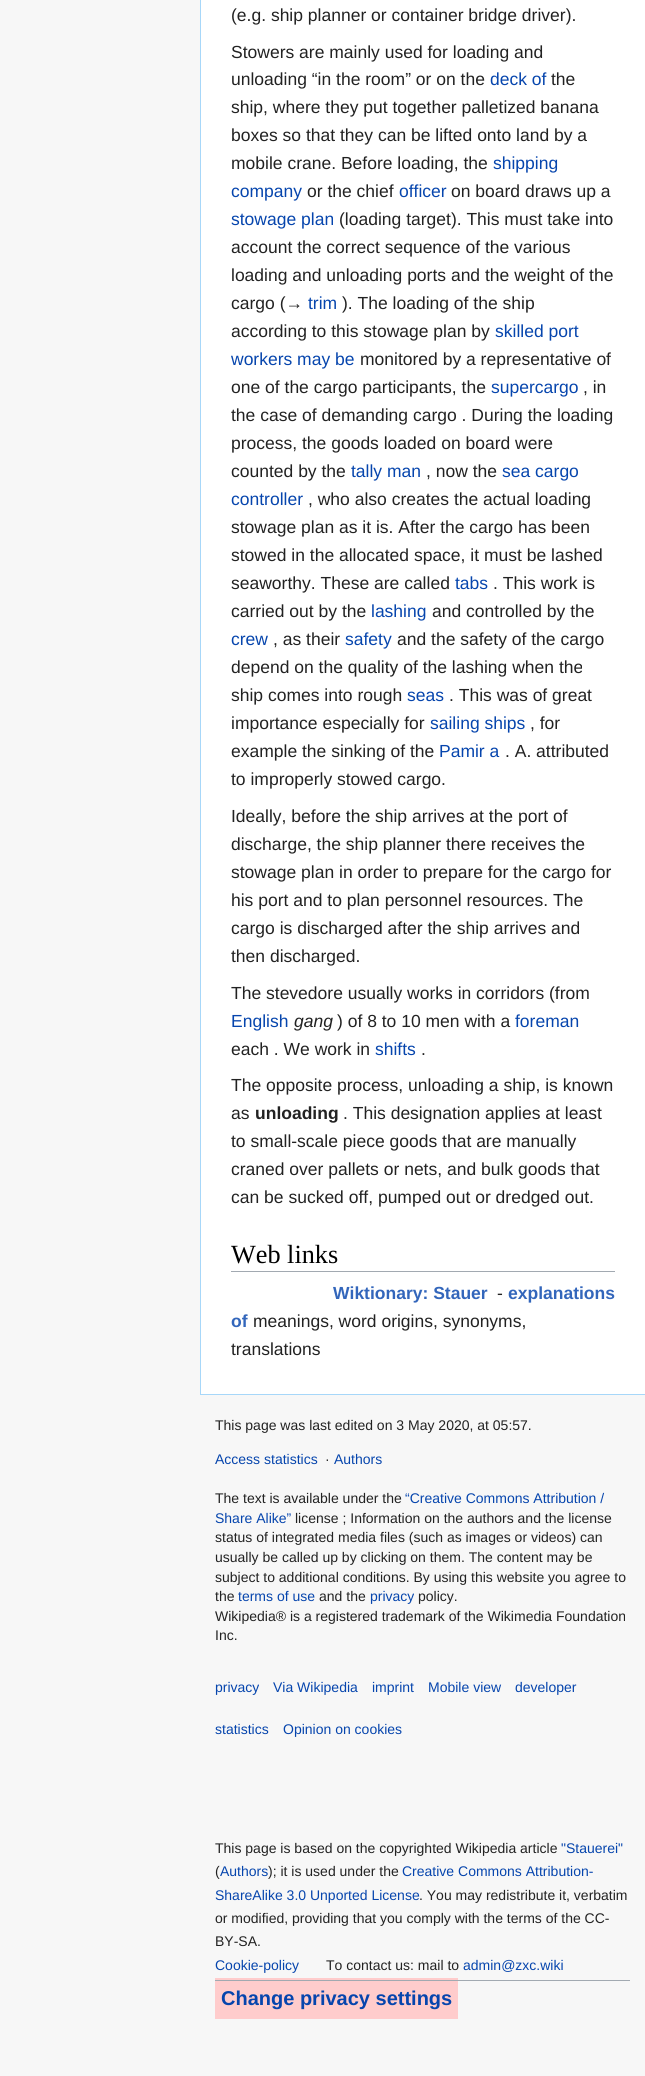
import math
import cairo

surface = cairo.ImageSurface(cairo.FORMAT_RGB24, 645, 2076)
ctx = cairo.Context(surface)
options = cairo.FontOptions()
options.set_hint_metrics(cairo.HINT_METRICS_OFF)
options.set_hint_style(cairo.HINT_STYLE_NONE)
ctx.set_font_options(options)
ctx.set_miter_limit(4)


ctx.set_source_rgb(0.965, 0.965, 0.965)
ctx.paint()
ctx.set_source_rgb(1, 1, 1)
ctx.rectangle(201, 0, 444, 1394)
ctx.fill()
ctx.set_source_rgb(0.655, 0.843, 0.976)
ctx.rectangle(200, 1394, 445, 1)
ctx.fill()
ctx.rectangle(200, 0, 1, 1395)
ctx.fill()
ctx.select_font_face("Liberation Sans")
ctx.set_font_size(17.5)
ctx.set_source_rgb(0.133, 0.133, 0.133)
ctx.move_to(231, 21)
ctx.show_text("(e.g. ship planner or container bridge driver).")
ctx.move_to(231, 58)
ctx.show_text("Stowers are mainly used for loading and")
ctx.move_to(231, 85)
ctx.show_text("unloading “in the room” or on the")
ctx.set_source_rgb(0.024, 0.271, 0.678)
ctx.move_to(490, 85)
ctx.show_text("deck of")
ctx.set_source_rgb(0.133, 0.133, 0.133)
ctx.move_to(551, 85)
ctx.show_text("the")
ctx.move_to(231, 113)
ctx.show_text("ship, where they put together palletized banana")
ctx.move_to(231, 141)
ctx.show_text("boxes so that they can be lifted onto land by a")
ctx.move_to(231, 169)
ctx.show_text("mobile crane. Before loading, the")
ctx.set_source_rgb(0.024, 0.271, 0.678)
ctx.move_to(493, 169)
ctx.show_text("shipping")
ctx.move_to(231, 197)
ctx.show_text("company")
ctx.set_source_rgb(0.133, 0.133, 0.133)
ctx.move_to(307, 197)
ctx.show_text("or the chief")
ctx.set_source_rgb(0.024, 0.271, 0.678)
ctx.move_to(399, 197)
ctx.show_text("officer")
ctx.set_source_rgb(0.133, 0.133, 0.133)
ctx.move_to(451, 197)
ctx.show_text("on board draws up a")
ctx.set_source_rgb(0.024, 0.271, 0.678)
ctx.move_to(231, 225)
ctx.show_text("stowage plan")
ctx.set_source_rgb(0.133, 0.133, 0.133)
ctx.move_to(339, 225)
ctx.show_text("(loading target). This must take into")
ctx.move_to(231, 253)
ctx.show_text("account the correct sequence of the various")
ctx.move_to(231, 281)
ctx.show_text("loading and unloading ports and the weight of the")
ctx.move_to(231, 309)
ctx.show_text("cargo (→")
ctx.set_source_rgb(0.024, 0.271, 0.678)
ctx.move_to(308, 309)
ctx.show_text("trim")
ctx.set_source_rgb(0.133, 0.133, 0.133)
ctx.move_to(342, 309)
ctx.show_text("). The loading of the ship")
ctx.move_to(231, 337)
ctx.show_text("according to this stowage plan by")
ctx.set_source_rgb(0.024, 0.271, 0.678)
ctx.move_to(495, 337)
ctx.show_text("skilled port")
ctx.move_to(231, 365)
ctx.show_text("workers may be")
ctx.set_source_rgb(0.133, 0.133, 0.133)
ctx.move_to(360, 365)
ctx.show_text("monitored by a representative of")
ctx.move_to(231, 393)
ctx.show_text("one of the cargo participants, the")
ctx.set_source_rgb(0.024, 0.271, 0.678)
ctx.move_to(491, 393)
ctx.show_text("supercargo")
ctx.set_source_rgb(0.133, 0.133, 0.133)
ctx.move_to(583, 393)
ctx.show_text(", in")
ctx.move_to(231, 421)
ctx.show_text("the case of demanding cargo . During the loading")
ctx.move_to(231, 449)
ctx.show_text("process, the goods loaded on board were")
ctx.move_to(231, 477)
ctx.show_text("counted by the")
ctx.set_source_rgb(0.024, 0.271, 0.678)
ctx.move_to(351, 477)
ctx.show_text("tally man")
ctx.set_source_rgb(0.133, 0.133, 0.133)
ctx.move_to(426, 477)
ctx.show_text(", now the")
ctx.set_source_rgb(0.024, 0.271, 0.678)
ctx.move_to(502, 477)
ctx.show_text("sea cargo")
ctx.move_to(231, 505)
ctx.show_text("controller")
ctx.set_source_rgb(0.133, 0.133, 0.133)
ctx.move_to(308, 505)
ctx.show_text(", who also creates the actual loading")
ctx.move_to(231, 533)
ctx.show_text("stowage plan as it is. After the cargo has been")
ctx.move_to(231, 561)
ctx.show_text("stowed in the allocated space, it must be lashed")
ctx.move_to(231, 589)
ctx.show_text("seaworthy. These are called")
ctx.set_source_rgb(0.024, 0.271, 0.678)
ctx.move_to(455, 589)
ctx.show_text("tabs")
ctx.set_source_rgb(0.133, 0.133, 0.133)
ctx.move_to(493, 589)
ctx.show_text(". This work is")
ctx.move_to(231, 617)
ctx.show_text("carried out by the")
ctx.set_source_rgb(0.024, 0.271, 0.678)
ctx.move_to(371, 617)
ctx.show_text("lashing")
ctx.set_source_rgb(0.133, 0.133, 0.133)
ctx.move_to(432, 617)
ctx.show_text("and controlled by the")
ctx.set_source_rgb(0.024, 0.271, 0.678)
ctx.move_to(231, 645)
ctx.show_text("crew")
ctx.set_source_rgb(0.133, 0.133, 0.133)
ctx.move_to(273, 645)
ctx.show_text(", as their")
ctx.set_source_rgb(0.024, 0.271, 0.678)
ctx.move_to(345, 645)
ctx.show_text("safety")
ctx.set_source_rgb(0.133, 0.133, 0.133)
ctx.move_to(397, 645)
ctx.show_text("and the safety of the cargo")
ctx.move_to(231, 673)
ctx.show_text("depend on the quality of the lashing when the")
ctx.move_to(231, 701)
ctx.show_text("ship comes into rough")
ctx.set_source_rgb(0.024, 0.271, 0.678)
ctx.move_to(407, 701)
ctx.show_text("seas")
ctx.set_source_rgb(0.133, 0.133, 0.133)
ctx.move_to(449, 701)
ctx.show_text(". This was of great")
ctx.move_to(231, 729)
ctx.show_text("importance especially for")
ctx.set_source_rgb(0.024, 0.271, 0.678)
ctx.move_to(430, 729)
ctx.show_text("sailing ships")
ctx.set_source_rgb(0.133, 0.133, 0.133)
ctx.move_to(530, 729)
ctx.show_text(", for")
ctx.move_to(231, 757)
ctx.show_text("example the sinking of the")
ctx.set_source_rgb(0.024, 0.271, 0.678)
ctx.move_to(439, 757)
ctx.show_text("Pamir a")
ctx.set_source_rgb(0.133, 0.133, 0.133)
ctx.move_to(505, 757)
ctx.show_text(". A. attributed")
ctx.move_to(231, 785)
ctx.show_text("to improperly stowed cargo.")
ctx.move_to(231, 822)
ctx.show_text("Ideally, before the ship arrives at the port of")
ctx.move_to(231, 850)
ctx.show_text("discharge, the ship planner there receives the")
ctx.move_to(231, 878)
ctx.show_text("stowage plan in order to prepare for the cargo for")
ctx.move_to(231, 906)
ctx.show_text("his port and to plan personnel resources. The")
ctx.move_to(231, 934)
ctx.show_text("cargo is discharged after the ship arrives and")
ctx.move_to(231, 962)
ctx.show_text("then discharged.")
ctx.move_to(231, 999)
ctx.show_text("The stevedore usually works in corridors (from")
ctx.set_source_rgb(0.024, 0.271, 0.678)
ctx.move_to(231, 1027)
ctx.show_text("English")
ctx.select_font_face("Liberation Sans", cairo.FONT_SLANT_ITALIC)
ctx.set_source_rgb(0.133, 0.133, 0.133)
ctx.move_to(294, 1027)
ctx.show_text("gang")
ctx.select_font_face("Liberation Sans")
ctx.move_to(337, 1027)
ctx.show_text(") of 8 to 10 men with a")
ctx.set_source_rgb(0.024, 0.271, 0.678)
ctx.move_to(515, 1027)
ctx.show_text("foreman")
ctx.set_source_rgb(0.133, 0.133, 0.133)
ctx.move_to(231, 1055)
ctx.show_text("each . We work in")
ctx.set_source_rgb(0.024, 0.271, 0.678)
ctx.move_to(375, 1055)
ctx.show_text("shifts")
ctx.set_source_rgb(0.133, 0.133, 0.133)
ctx.move_to(421, 1055)
ctx.show_text(".")
ctx.move_to(231, 1091)
ctx.show_text("The opposite process, unloading a ship, is known")
ctx.move_to(231, 1119)
ctx.show_text("as")
ctx.select_font_face("Liberation Sans", cairo.FONT_SLANT_NORMAL, cairo.FONT_WEIGHT_BOLD)
ctx.move_to(255, 1119)
ctx.show_text("unloading")
ctx.select_font_face("Liberation Sans")
ctx.move_to(343, 1119)
ctx.show_text(". This designation applies at least")
ctx.move_to(231, 1147)
ctx.show_text("to small-scale piece goods that are manually")
ctx.move_to(231, 1175)
ctx.show_text("craned over pallets or nets, and bulk goods that")
ctx.move_to(231, 1203)
ctx.show_text("can be sucked off, pumped out or dredged out.")
ctx.set_source_rgb(0.635, 0.663, 0.694)
ctx.rectangle(231, 1271, 384, 1)
ctx.fill()
ctx.select_font_face("Liberation Serif")
ctx.set_font_size(26.25)
ctx.set_source_rgb(0, 0, 0)
ctx.move_to(231, 1263)
ctx.show_text("Web links")
ctx.select_font_face("Liberation Sans", cairo.FONT_SLANT_NORMAL, cairo.FONT_WEIGHT_BOLD)
ctx.set_font_size(17.5)
ctx.set_source_rgb(0.2, 0.4, 0.733)
ctx.move_to(333, 1299)
ctx.show_text("Wiktionary: Stauer")
ctx.select_font_face("Liberation Sans")
ctx.set_source_rgb(0.133, 0.133, 0.133)
ctx.move_to(497, 1299)
ctx.show_text("-")
ctx.select_font_face("Liberation Sans", cairo.FONT_SLANT_NORMAL, cairo.FONT_WEIGHT_BOLD)
ctx.set_source_rgb(0.2, 0.4, 0.733)
ctx.move_to(508, 1299)
ctx.show_text("explanations")
ctx.move_to(231, 1327)
ctx.show_text("of")
ctx.select_font_face("Liberation Sans")
ctx.set_source_rgb(0.133, 0.133, 0.133)
ctx.move_to(253, 1327)
ctx.show_text("meanings, word origins, synonyms,")
ctx.move_to(231, 1355)
ctx.show_text("translations")
ctx.set_font_size(14)
ctx.move_to(215, 1430)
ctx.show_text("This page was last edited on 3 May 2020, at 05:57.")
ctx.set_source_rgb(0.024, 0.271, 0.678)
ctx.move_to(215, 1464)
ctx.show_text("Access statistics")
ctx.set_source_rgb(0.133, 0.133, 0.133)
ctx.move_to(325, 1464)
ctx.show_text("·")
ctx.set_source_rgb(0.024, 0.271, 0.678)
ctx.move_to(334, 1464)
ctx.show_text("Authors")
ctx.set_source_rgb(0.133, 0.133, 0.133)
ctx.move_to(215, 1503)
ctx.show_text("The text is available under the")
ctx.set_source_rgb(0.024, 0.271, 0.678)
ctx.move_to(405, 1503)
ctx.show_text("“Creative Commons Attribution /")
ctx.move_to(215, 1523)
ctx.show_text("Share Alike”")
ctx.set_source_rgb(0.133, 0.133, 0.133)
ctx.move_to(295, 1523)
ctx.show_text("license ; Information on the authors and the license")
ctx.move_to(215, 1542)
ctx.show_text("status of integrated media files (such as images or videos) can")
ctx.move_to(215, 1562)
ctx.show_text("usually be called up by clicking on them. The content may be")
ctx.move_to(215, 1582)
ctx.show_text("subject to additional conditions. By using this website you agree to")
ctx.move_to(215, 1601)
ctx.show_text("the")
ctx.set_source_rgb(0.024, 0.271, 0.678)
ctx.move_to(238, 1601)
ctx.show_text("terms of use")
ctx.set_source_rgb(0.133, 0.133, 0.133)
ctx.move_to(319, 1601)
ctx.show_text("and the")
ctx.set_source_rgb(0.024, 0.271, 0.678)
ctx.move_to(370, 1601)
ctx.show_text("privacy")
ctx.set_source_rgb(0.133, 0.133, 0.133)
ctx.move_to(418, 1601)
ctx.show_text("policy.")
ctx.move_to(215, 1621)
ctx.show_text("Wikipedia® is a registered trademark of the Wikimedia Foundation")
ctx.move_to(215, 1640)
ctx.show_text("Inc.")
ctx.set_source_rgb(0.024, 0.271, 0.678)
ctx.move_to(215, 1692)
ctx.show_text("privacy")
ctx.move_to(273, 1692)
ctx.show_text("Via Wikipedia")
ctx.move_to(372, 1692)
ctx.show_text("imprint")
ctx.move_to(428, 1692)
ctx.show_text("Mobile view")
ctx.move_to(515, 1692)
ctx.show_text("developer")
ctx.move_to(215, 1734)
ctx.show_text("statistics")
ctx.move_to(283, 1734)
ctx.show_text("Opinion on cookies")
ctx.set_source_rgb(0.133, 0.133, 0.133)
ctx.move_to(215, 1853)
ctx.show_text("This page is based on the copyrighted Wikipedia article")
ctx.set_source_rgb(0.024, 0.271, 0.678)
ctx.move_to(561, 1853)
ctx.show_text("\"Stauerei\"")
ctx.set_source_rgb(0.133, 0.133, 0.133)
ctx.move_to(215, 1876)
ctx.show_text("(")
ctx.set_source_rgb(0.024, 0.271, 0.678)
ctx.move_to(220, 1876)
ctx.show_text("Authors")
ctx.set_source_rgb(0.133, 0.133, 0.133)
ctx.move_to(268, 1876)
ctx.show_text("); it is used under the")
ctx.set_source_rgb(0.024, 0.271, 0.678)
ctx.move_to(402, 1876)
ctx.show_text("Creative Commons Attribution-")
ctx.move_to(215, 1900)
ctx.show_text("ShareAlike 3.0 Unported License")
ctx.set_source_rgb(0.133, 0.133, 0.133)
ctx.move_to(419, 1900)
ctx.show_text(". You may redistribute it, verbatim")
ctx.move_to(215, 1923)
ctx.show_text("or modified, providing that you comply with the terms of the CC-")
ctx.move_to(215, 1946)
ctx.show_text("BY-SA.")
ctx.set_source_rgb(0.024, 0.271, 0.678)
ctx.move_to(215, 1970)
ctx.show_text("Cookie-policy")
ctx.set_source_rgb(0.133, 0.133, 0.133)
ctx.move_to(326, 1970)
ctx.show_text("To contact us: mail to")
ctx.set_source_rgb(0.024, 0.271, 0.678)
ctx.move_to(463, 1970)
ctx.show_text("admin@zxc.wiki")
ctx.set_source_rgb(1, 0.8, 0.8)
ctx.rectangle(215, 1978, 243, 41)
ctx.fill()
ctx.set_source_rgb(0.635, 0.663, 0.694)
ctx.rectangle(215, 1980, 415, 1)
ctx.fill()
ctx.select_font_face("Liberation Sans", cairo.FONT_SLANT_NORMAL, cairo.FONT_WEIGHT_BOLD)
ctx.set_font_size(20)
ctx.set_source_rgb(0.024, 0.271, 0.678)
ctx.move_to(221, 2005)
ctx.show_text("Change privacy settings")
surface.write_to_png("page.png")
